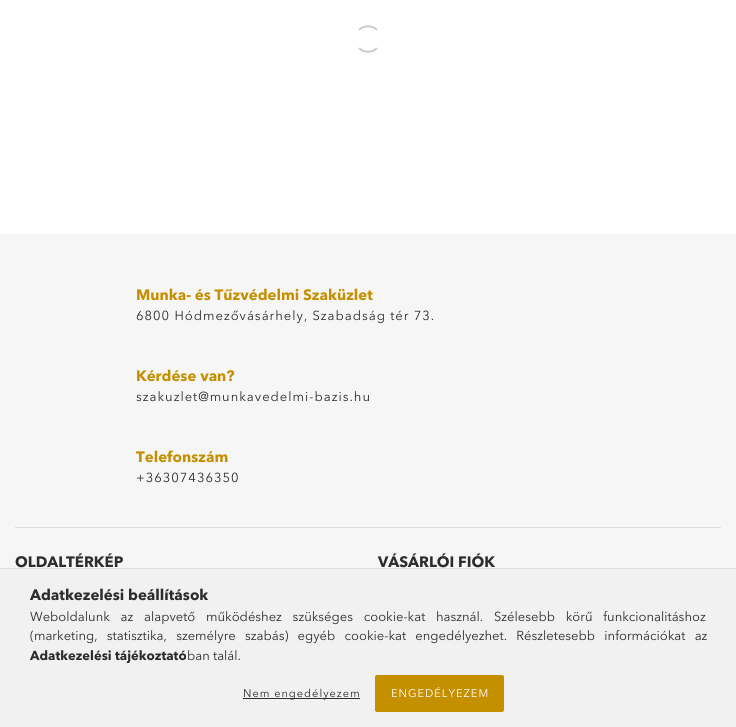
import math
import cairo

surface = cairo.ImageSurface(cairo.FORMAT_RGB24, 736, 727)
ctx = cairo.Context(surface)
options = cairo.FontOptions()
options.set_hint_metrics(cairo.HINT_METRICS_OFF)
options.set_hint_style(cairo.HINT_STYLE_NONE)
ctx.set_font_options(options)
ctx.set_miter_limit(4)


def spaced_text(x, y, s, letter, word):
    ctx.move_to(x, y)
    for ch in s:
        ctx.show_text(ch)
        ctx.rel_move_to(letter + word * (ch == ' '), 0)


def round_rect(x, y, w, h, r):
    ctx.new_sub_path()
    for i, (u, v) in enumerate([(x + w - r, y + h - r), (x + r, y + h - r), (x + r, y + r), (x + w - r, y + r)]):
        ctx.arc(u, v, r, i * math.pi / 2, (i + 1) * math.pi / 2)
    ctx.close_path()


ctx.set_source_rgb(1, 1, 1)
ctx.paint()
ctx.new_path()
ctx.move_to(359, 30)
ctx.curve_to(364, 25, 372, 25, 377, 30)
ctx.move_to(377, 48)
ctx.curve_to(372, 53, 364, 53, 359, 48)
ctx.set_source_rgb(0.8, 0.8, 0.8)
ctx.stroke()
ctx.set_source_rgb(0.961, 0.961, 0.961)
ctx.rectangle(0, 234, 736, 334)
ctx.fill()
ctx.select_font_face("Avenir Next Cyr", cairo.FONT_SLANT_NORMAL, cairo.FONT_WEIGHT_BOLD)
ctx.set_font_size(15)
ctx.set_source_rgb(0.773, 0.565, 0)
ctx.move_to(136, 300)
ctx.show_text("Munka- és Tűzvédelmi Szaküzlet")
ctx.select_font_face("Avenir Next Cyr")
ctx.set_font_size(13)
ctx.set_source_rgb(0.173, 0.173, 0.173)
spaced_text(136, 320, "6800 Hódmezővásárhely, Szabadság tér 73.", 1, 0)
ctx.select_font_face("Avenir Next Cyr", cairo.FONT_SLANT_NORMAL, cairo.FONT_WEIGHT_BOLD)
ctx.set_font_size(15)
ctx.set_source_rgb(0.773, 0.565, 0)
ctx.move_to(136, 381)
ctx.show_text("Kérdése van?")
ctx.select_font_face("Avenir Next Cyr")
ctx.set_font_size(13)
ctx.set_source_rgb(0.173, 0.173, 0.173)
spaced_text(136, 401, "szakuzlet@munkavedelmi-bazis.hu", 1, 0)
ctx.select_font_face("Avenir Next Cyr", cairo.FONT_SLANT_NORMAL, cairo.FONT_WEIGHT_BOLD)
ctx.set_font_size(15)
ctx.set_source_rgb(0.773, 0.565, 0)
ctx.move_to(136, 462)
ctx.show_text("Telefonszám")
ctx.select_font_face("Avenir Next Cyr")
ctx.set_font_size(13)
ctx.set_source_rgb(0.173, 0.173, 0.173)
spaced_text(136, 482, "+36307436350", 1, 0)
ctx.set_source_rgb(0.867, 0.867, 0.867)
ctx.rectangle(15, 527, 706, 1)
ctx.fill()
ctx.select_font_face("Avenir Next Cyr", cairo.FONT_SLANT_NORMAL, cairo.FONT_WEIGHT_BOLD)
ctx.set_font_size(15)
ctx.set_source_rgb(0.173, 0.173, 0.173)
ctx.move_to(15, 567)
ctx.show_text("OLDALTÉRKÉP")
ctx.move_to(378, 567)
ctx.show_text("VÁSÁRLÓI FIÓK")
ctx.set_source_rgb(0.945, 0.945, 0.945)
ctx.rectangle(0, 569, 736, 158)
ctx.fill()
ctx.set_source_rgb(0.867, 0.867, 0.867)
ctx.rectangle(0, 568, 736, 1)
ctx.fill()
ctx.set_source_rgb(0.173, 0.173, 0.173)
ctx.move_to(30, 600)
ctx.show_text("Adatkezelési beállítások")
ctx.select_font_face("Avenir Next Cyr")
ctx.set_font_size(13)
spaced_text(30, 621, "Weboldalunk az alapvető működéshez szükséges cookie-kat használ. Szélesebb körű funkcionalitáshoz", 0, 7.5)
spaced_text(30, 640, "(marketing, statisztika, személyre szabás) egyéb cookie-kat engedélyezhet. Részletesebb információkat az", 0, 6)
ctx.select_font_face("Avenir Next Cyr", cairo.FONT_SLANT_NORMAL, cairo.FONT_WEIGHT_BOLD)
ctx.move_to(30, 660)
ctx.show_text("Adatkezelési tájékoztató")
ctx.select_font_face("Avenir Next Cyr")
ctx.move_to(187, 660)
ctx.show_text("ban talál.")
ctx.rectangle(243, 698, 117, 1)
ctx.fill()
ctx.set_font_size(11)
spaced_text(243, 697, "Nem engedélyezem", 1, 0)
ctx.set_source_rgb(0.773, 0.565, 0)
round_rect(375.5, 675.5, 128, 36, 1.5)
ctx.fill_preserve()
ctx.set_line_width(1)
ctx.stroke()
ctx.set_source_rgb(1, 1, 1)
spaced_text(391, 697, "ENGEDÉLYEZEM", 1, 0)
surface.write_to_png("page.png")
